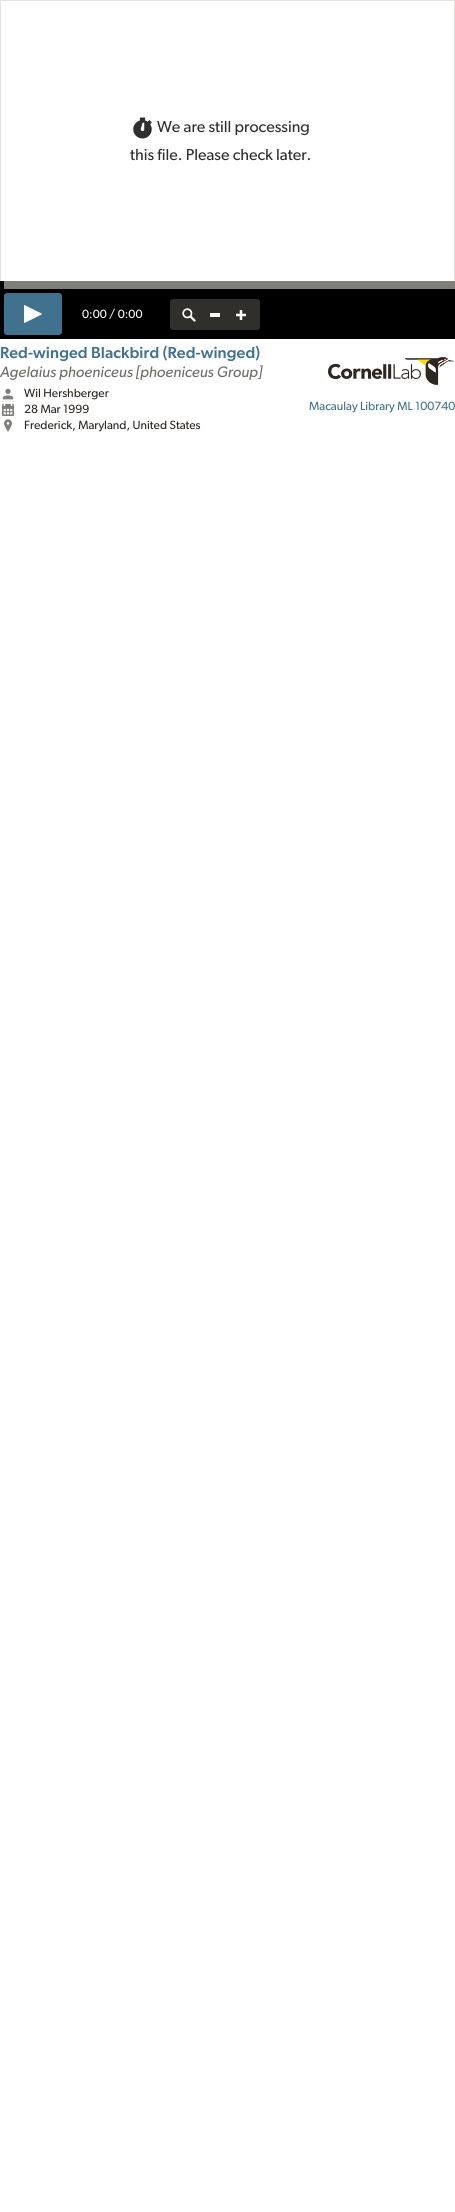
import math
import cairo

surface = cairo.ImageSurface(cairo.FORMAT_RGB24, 455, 2212)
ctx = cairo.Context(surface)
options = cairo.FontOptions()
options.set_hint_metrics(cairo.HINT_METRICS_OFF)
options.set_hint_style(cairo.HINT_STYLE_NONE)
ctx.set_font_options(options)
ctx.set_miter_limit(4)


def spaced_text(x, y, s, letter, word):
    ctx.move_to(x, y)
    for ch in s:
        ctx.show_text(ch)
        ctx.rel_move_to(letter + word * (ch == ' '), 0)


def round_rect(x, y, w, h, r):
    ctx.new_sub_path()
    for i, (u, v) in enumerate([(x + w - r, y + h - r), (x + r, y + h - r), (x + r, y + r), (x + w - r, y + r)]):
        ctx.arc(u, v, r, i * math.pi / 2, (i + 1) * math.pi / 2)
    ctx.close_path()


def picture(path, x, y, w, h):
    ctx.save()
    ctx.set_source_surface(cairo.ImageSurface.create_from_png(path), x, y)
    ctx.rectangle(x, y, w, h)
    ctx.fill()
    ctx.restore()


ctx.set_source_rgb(1, 1, 1)
ctx.paint()
ctx.set_source_rgb(0.898, 0.89, 0.863)
ctx.rectangle(0, 0, 455, 1)
ctx.fill()
ctx.rectangle(454, 0, 1, 281)
ctx.fill()
ctx.rectangle(0, 0, 1, 281)
ctx.fill()
picture("img1.png", 133, 117, 19, 22)
ctx.select_font_face("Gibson")
ctx.set_font_size(16)
ctx.set_source_rgb(0.188, 0.184, 0.173)
ctx.move_to(157, 132)
ctx.show_text("We are still processing")
ctx.move_to(130, 160)
ctx.show_text("this file. Please check later.")
ctx.set_source_rgb(0.506, 0.498, 0.475)
ctx.rectangle(0, 281, 455, 8)
ctx.fill()
ctx.set_source_rgb(0, 0, 0)
ctx.rectangle(0, 281, 4, 8)
ctx.fill()
ctx.rectangle(0, 289, 455, 50)
ctx.fill()
ctx.set_source_rgb(0.251, 0.443, 0.561)
round_rect(4, 293, 58, 42, 3)
ctx.fill()
picture("img2.png", 24, 305, 18, 18)
ctx.set_font_size(12)
ctx.set_source_rgb(1, 1, 1)
ctx.move_to(82, 318)
ctx.show_text("0:00 / 0:00")
ctx.set_source_rgb(0.188, 0.184, 0.173)
round_rect(170, 299, 90, 31, 3)
ctx.fill()
picture("img3.png", 182, 308, 14, 14)
ctx.set_source_rgb(1, 1, 1)
ctx.rectangle(210, 313, 10, 4)
ctx.fill()
picture("img4.png", 236, 310, 10, 10)
ctx.select_font_face("Gibson Medium")
ctx.set_font_size(16)
ctx.set_source_rgb(0.251, 0.443, 0.561)
spaced_text(0, 358, "Red-winged Blackbird (Red-winged)", 0.1, 0)
ctx.select_font_face("Gibson", cairo.FONT_SLANT_ITALIC)
ctx.set_font_size(15.25)
ctx.set_source_rgb(0.435, 0.431, 0.404)
ctx.move_to(0, 377)
ctx.show_text("Agelaius phoeniceus [phoeniceus Group]")
picture("img5.png", 2, 388, 12, 12)
ctx.select_font_face("Gibson")
ctx.set_font_size(12)
ctx.set_source_rgb(0.18, 0.149, 0.122)
ctx.move_to(24, 397)
ctx.show_text("Wil Hershberger")
picture("img6.png", 2, 404, 12, 12)
ctx.move_to(24, 413)
ctx.show_text("28 Mar 1999")
picture("img7.png", 4, 419, 8, 13)
ctx.move_to(24, 429)
ctx.show_text("Frederick, Maryland, United States")
picture("img8.png", 328, 357, 126, 28)
ctx.set_source_rgb(0.251, 0.443, 0.561)
ctx.move_to(309, 410)
ctx.show_text("Macaulay Library ML 100740")
surface.write_to_png("page.png")
